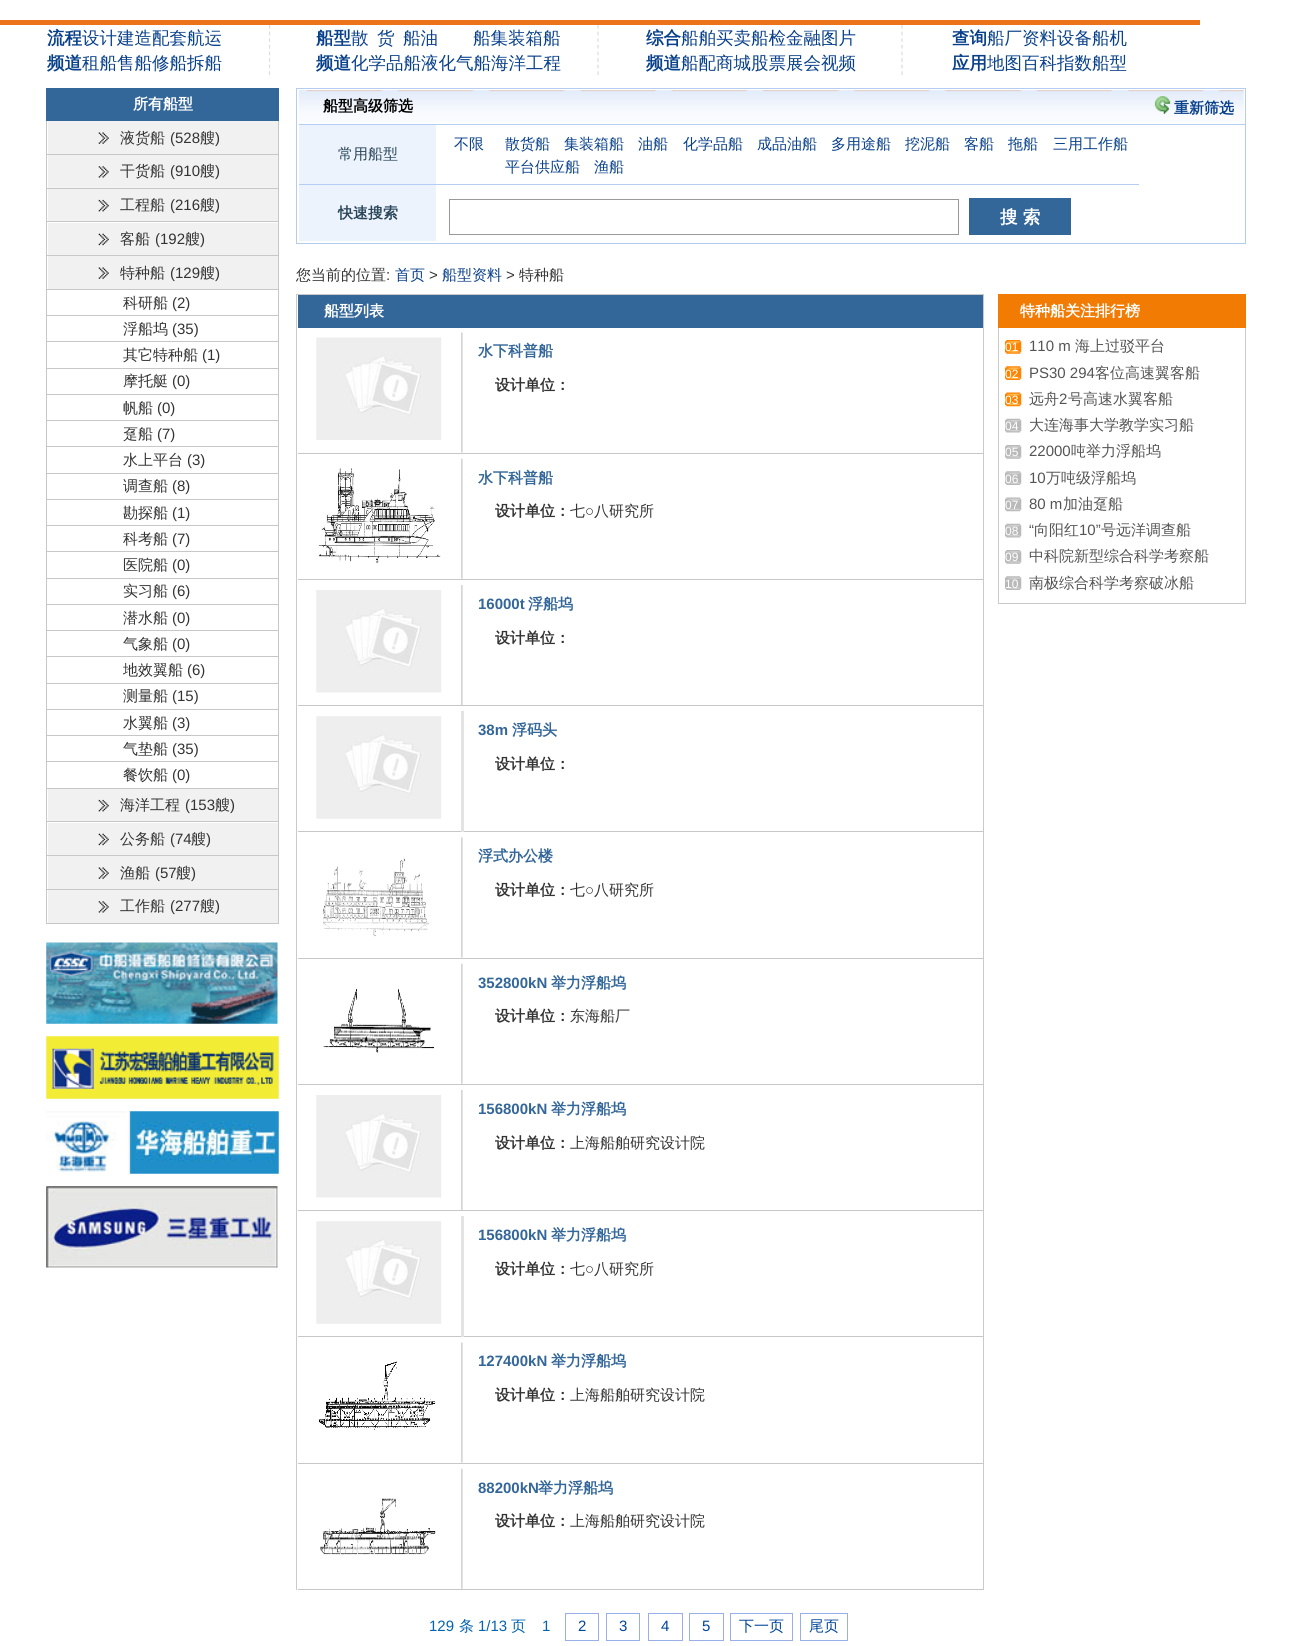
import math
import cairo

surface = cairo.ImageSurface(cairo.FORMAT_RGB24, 1292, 1646)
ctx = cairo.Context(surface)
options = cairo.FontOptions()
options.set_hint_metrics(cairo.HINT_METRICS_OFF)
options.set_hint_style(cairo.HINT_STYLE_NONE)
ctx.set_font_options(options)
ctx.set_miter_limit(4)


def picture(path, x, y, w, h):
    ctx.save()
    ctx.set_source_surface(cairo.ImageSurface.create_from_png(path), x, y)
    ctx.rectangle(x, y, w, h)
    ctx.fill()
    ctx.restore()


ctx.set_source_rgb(1, 1, 1)
ctx.paint()
ctx.set_source_rgb(0.929, 0.451, 0.102)
ctx.rectangle(0, 20, 1200, 5)
ctx.fill()
ctx.new_path()
ctx.move_to(269.5, 25)
ctx.line_to(269.5, 75)
ctx.set_source_rgb(0.863, 0.867, 0.867)
ctx.set_line_width(1.2)
ctx.set_dash([3.75, 2.86])
ctx.stroke()
ctx.select_font_face("WenQuanYi Zen Hei", cairo.FONT_SLANT_NORMAL, cairo.FONT_WEIGHT_BOLD)
ctx.set_font_size(17.5)
ctx.set_source_rgb(0.035, 0.251, 0.541)
ctx.move_to(47, 44)
ctx.show_text("流程")
ctx.select_font_face("WenQuanYi Zen Hei Medium")
ctx.move_to(82, 44)
ctx.show_text("设计建造配套航运")
ctx.select_font_face("WenQuanYi Zen Hei", cairo.FONT_SLANT_NORMAL, cairo.FONT_WEIGHT_BOLD)
ctx.move_to(47, 69)
ctx.show_text("频道")
ctx.select_font_face("WenQuanYi Zen Hei Medium")
ctx.move_to(82, 69)
ctx.show_text("租船售船修船拆船")
ctx.new_path()
ctx.move_to(598, 25)
ctx.line_to(598, 75)
ctx.set_source_rgb(0.863, 0.867, 0.867)
ctx.stroke()
ctx.select_font_face("WenQuanYi Zen Hei", cairo.FONT_SLANT_NORMAL, cairo.FONT_WEIGHT_BOLD)
ctx.set_source_rgb(0.035, 0.251, 0.541)
ctx.move_to(316, 44)
ctx.show_text("船型")
ctx.select_font_face("WenQuanYi Zen Hei Medium")
ctx.move_to(351, 44)
ctx.show_text("散")
ctx.move_to(377, 44)
ctx.show_text("货")
ctx.move_to(403, 44)
ctx.show_text("船油")
ctx.move_to(473, 44)
ctx.show_text("船集装箱船")
ctx.select_font_face("WenQuanYi Zen Hei", cairo.FONT_SLANT_NORMAL, cairo.FONT_WEIGHT_BOLD)
ctx.move_to(316, 69)
ctx.show_text("频道")
ctx.select_font_face("WenQuanYi Zen Hei Medium")
ctx.move_to(351, 69)
ctx.show_text("化学品船液化气船海洋工程")
ctx.new_path()
ctx.move_to(902, 25)
ctx.line_to(902, 75)
ctx.set_source_rgb(0.863, 0.867, 0.867)
ctx.stroke()
ctx.select_font_face("WenQuanYi Zen Hei", cairo.FONT_SLANT_NORMAL, cairo.FONT_WEIGHT_BOLD)
ctx.set_source_rgb(0.035, 0.251, 0.541)
ctx.move_to(646, 44)
ctx.show_text("综合")
ctx.select_font_face("WenQuanYi Zen Hei Medium")
ctx.move_to(681, 44)
ctx.show_text("船舶买卖船检金融图片")
ctx.select_font_face("WenQuanYi Zen Hei", cairo.FONT_SLANT_NORMAL, cairo.FONT_WEIGHT_BOLD)
ctx.move_to(646, 69)
ctx.show_text("频道")
ctx.select_font_face("WenQuanYi Zen Hei Medium")
ctx.move_to(681, 69)
ctx.show_text("船配商城股票展会视频")
ctx.select_font_face("WenQuanYi Zen Hei", cairo.FONT_SLANT_NORMAL, cairo.FONT_WEIGHT_BOLD)
ctx.move_to(952, 44)
ctx.show_text("查询")
ctx.select_font_face("WenQuanYi Zen Hei Medium")
ctx.move_to(987, 44)
ctx.show_text("船厂资料设备船机")
ctx.select_font_face("WenQuanYi Zen Hei", cairo.FONT_SLANT_NORMAL, cairo.FONT_WEIGHT_BOLD)
ctx.move_to(952, 69)
ctx.show_text("应用")
ctx.select_font_face("WenQuanYi Zen Hei Medium")
ctx.move_to(987, 69)
ctx.show_text("地图百科指数船型")
ctx.set_source_rgb(0.2, 0.4, 0.6)
ctx.rectangle(46, 88, 233, 33)
ctx.fill()
ctx.select_font_face("WenQuanYi Zen Hei", cairo.FONT_SLANT_NORMAL, cairo.FONT_WEIGHT_BOLD)
ctx.set_font_size(15)
ctx.set_source_rgb(1, 1, 1)
ctx.move_to(133, 109)
ctx.show_text("所有船型")
ctx.set_source_rgb(0.945, 0.945, 0.945)
ctx.rectangle(48, 121, 230, 33)
ctx.fill()
ctx.set_source_rgb(0.78, 0.78, 0.78)
ctx.rectangle(278, 121, 1, 169)
ctx.fill()
ctx.rectangle(46, 154, 233, 1)
ctx.fill()
ctx.rectangle(46, 121, 1, 34)
ctx.fill()
picture("img1.png", 98, 132, 11, 12)
ctx.select_font_face("WenQuanYi Zen Hei Medium")
ctx.set_source_rgb(0.2, 0.2, 0.2)
ctx.move_to(120, 143)
ctx.show_text("液货船")
ctx.select_font_face("Liberation Sans")
ctx.move_to(170, 143)
ctx.show_text("(528")
ctx.select_font_face("WenQuanYi Zen Hei Medium")
ctx.move_to(200, 143)
ctx.show_text("艘")
ctx.select_font_face("Liberation Sans")
ctx.move_to(215, 143)
ctx.show_text(")")
ctx.set_source_rgb(0.945, 0.945, 0.945)
ctx.rectangle(48, 155, 230, 33)
ctx.fill()
ctx.set_source_rgb(0.78, 0.78, 0.78)
ctx.rectangle(46, 188, 233, 1)
ctx.fill()
ctx.rectangle(46, 155, 1, 34)
ctx.fill()
picture("img2.png", 98, 166, 11, 12)
ctx.select_font_face("WenQuanYi Zen Hei Medium")
ctx.set_source_rgb(0.2, 0.2, 0.2)
ctx.move_to(120, 176)
ctx.show_text("干货船")
ctx.select_font_face("Liberation Sans")
ctx.move_to(170, 176)
ctx.show_text("(910")
ctx.select_font_face("WenQuanYi Zen Hei Medium")
ctx.move_to(200, 176)
ctx.show_text("艘")
ctx.select_font_face("Liberation Sans")
ctx.move_to(215, 176)
ctx.show_text(")")
ctx.set_source_rgb(0.945, 0.945, 0.945)
ctx.rectangle(48, 189, 230, 32)
ctx.fill()
ctx.set_source_rgb(0.78, 0.78, 0.78)
ctx.rectangle(46, 221, 233, 1)
ctx.fill()
ctx.rectangle(46, 189, 1, 34)
ctx.fill()
picture("img3.png", 98, 199, 11, 13)
ctx.select_font_face("WenQuanYi Zen Hei Medium")
ctx.set_source_rgb(0.2, 0.2, 0.2)
ctx.move_to(120, 210)
ctx.show_text("工程船")
ctx.select_font_face("Liberation Sans")
ctx.move_to(170, 210)
ctx.show_text("(216")
ctx.select_font_face("WenQuanYi Zen Hei Medium")
ctx.move_to(200, 210)
ctx.show_text("艘")
ctx.select_font_face("Liberation Sans")
ctx.move_to(215, 210)
ctx.show_text(")")
ctx.set_source_rgb(0.945, 0.945, 0.945)
ctx.rectangle(48, 223, 230, 32)
ctx.fill()
ctx.set_source_rgb(0.78, 0.78, 0.78)
ctx.rectangle(46, 255, 233, 1)
ctx.fill()
ctx.rectangle(46, 223, 1, 33)
ctx.fill()
picture("img4.png", 98, 233, 11, 13)
ctx.select_font_face("WenQuanYi Zen Hei Medium")
ctx.set_source_rgb(0.2, 0.2, 0.2)
ctx.move_to(120, 244)
ctx.show_text("客船")
ctx.select_font_face("Liberation Sans")
ctx.move_to(155, 244)
ctx.show_text("(192")
ctx.select_font_face("WenQuanYi Zen Hei Medium")
ctx.move_to(185, 244)
ctx.show_text("艘")
ctx.select_font_face("Liberation Sans")
ctx.move_to(200, 244)
ctx.show_text(")")
ctx.set_source_rgb(0.945, 0.945, 0.945)
ctx.rectangle(48, 256, 230, 33)
ctx.fill()
ctx.set_source_rgb(0.78, 0.78, 0.78)
ctx.rectangle(46, 289, 233, 1)
ctx.fill()
ctx.rectangle(46, 256, 1, 34)
ctx.fill()
picture("img1.png", 98, 267, 11, 12)
ctx.select_font_face("WenQuanYi Zen Hei Medium")
ctx.set_source_rgb(0.2, 0.2, 0.2)
ctx.move_to(120, 278)
ctx.show_text("特种船")
ctx.select_font_face("Liberation Sans")
ctx.move_to(170, 278)
ctx.show_text("(129")
ctx.select_font_face("WenQuanYi Zen Hei Medium")
ctx.move_to(200, 278)
ctx.show_text("艘")
ctx.select_font_face("Liberation Sans")
ctx.move_to(215, 278)
ctx.show_text(")")
ctx.set_source_rgb(0.78, 0.78, 0.78)
ctx.rectangle(278, 290, 1, 499)
ctx.fill()
ctx.rectangle(46, 315, 233, 1)
ctx.fill()
ctx.rectangle(46, 290, 1, 26)
ctx.fill()
ctx.select_font_face("WenQuanYi Zen Hei Medium")
ctx.set_source_rgb(0.2, 0.2, 0.2)
ctx.move_to(123, 308)
ctx.show_text("科研船")
ctx.select_font_face("Liberation Sans")
ctx.move_to(172, 308)
ctx.show_text("(2)")
ctx.set_source_rgb(0.78, 0.78, 0.78)
ctx.rectangle(46, 341, 233, 1)
ctx.fill()
ctx.rectangle(46, 316, 1, 27)
ctx.fill()
ctx.select_font_face("WenQuanYi Zen Hei Medium")
ctx.set_source_rgb(0.2, 0.2, 0.2)
ctx.move_to(123, 334)
ctx.show_text("浮船坞")
ctx.select_font_face("Liberation Sans")
ctx.move_to(172, 334)
ctx.show_text("(35)")
ctx.set_source_rgb(0.78, 0.78, 0.78)
ctx.rectangle(46, 368, 233, 1)
ctx.fill()
ctx.rectangle(46, 343, 1, 26)
ctx.fill()
ctx.select_font_face("WenQuanYi Zen Hei Medium")
ctx.set_source_rgb(0.2, 0.2, 0.2)
ctx.move_to(123, 360)
ctx.show_text("其它特种船")
ctx.select_font_face("Liberation Sans")
ctx.move_to(202, 360)
ctx.show_text("(1)")
ctx.set_source_rgb(0.78, 0.78, 0.78)
ctx.rectangle(46, 394, 233, 1)
ctx.fill()
ctx.rectangle(46, 369, 1, 26)
ctx.fill()
ctx.select_font_face("WenQuanYi Zen Hei Medium")
ctx.set_source_rgb(0.2, 0.2, 0.2)
ctx.move_to(123, 386)
ctx.show_text("摩托艇")
ctx.select_font_face("Liberation Sans")
ctx.move_to(172, 386)
ctx.show_text("(0)")
ctx.set_source_rgb(0.78, 0.78, 0.78)
ctx.rectangle(46, 420, 233, 1)
ctx.fill()
ctx.rectangle(46, 395, 1, 26)
ctx.fill()
ctx.select_font_face("WenQuanYi Zen Hei Medium")
ctx.set_source_rgb(0.2, 0.2, 0.2)
ctx.move_to(123, 413)
ctx.show_text("帆船")
ctx.select_font_face("Liberation Sans")
ctx.move_to(157, 413)
ctx.show_text("(0)")
ctx.set_source_rgb(0.78, 0.78, 0.78)
ctx.rectangle(46, 446, 233, 1)
ctx.fill()
ctx.rectangle(46, 421, 1, 27)
ctx.fill()
ctx.select_font_face("WenQuanYi Zen Hei Medium")
ctx.set_source_rgb(0.2, 0.2, 0.2)
ctx.move_to(123, 439)
ctx.show_text("趸船")
ctx.select_font_face("Liberation Sans")
ctx.move_to(157, 439)
ctx.show_text("(7)")
ctx.set_source_rgb(0.78, 0.78, 0.78)
ctx.rectangle(46, 473, 233, 1)
ctx.fill()
ctx.rectangle(46, 448, 1, 26)
ctx.fill()
ctx.select_font_face("WenQuanYi Zen Hei Medium")
ctx.set_source_rgb(0.2, 0.2, 0.2)
ctx.move_to(123, 465)
ctx.show_text("水上平台")
ctx.select_font_face("Liberation Sans")
ctx.move_to(187, 465)
ctx.show_text("(3)")
ctx.set_source_rgb(0.78, 0.78, 0.78)
ctx.rectangle(46, 499, 233, 1)
ctx.fill()
ctx.rectangle(46, 474, 1, 26)
ctx.fill()
ctx.select_font_face("WenQuanYi Zen Hei Medium")
ctx.set_source_rgb(0.2, 0.2, 0.2)
ctx.move_to(123, 491)
ctx.show_text("调查船")
ctx.select_font_face("Liberation Sans")
ctx.move_to(172, 491)
ctx.show_text("(8)")
ctx.set_source_rgb(0.78, 0.78, 0.78)
ctx.rectangle(46, 525, 233, 1)
ctx.fill()
ctx.rectangle(46, 500, 1, 26)
ctx.fill()
ctx.select_font_face("WenQuanYi Zen Hei Medium")
ctx.set_source_rgb(0.2, 0.2, 0.2)
ctx.move_to(123, 518)
ctx.show_text("勘探船")
ctx.select_font_face("Liberation Sans")
ctx.move_to(172, 518)
ctx.show_text("(1)")
ctx.set_source_rgb(0.78, 0.78, 0.78)
ctx.rectangle(46, 551, 233, 1)
ctx.fill()
ctx.rectangle(46, 526, 1, 27)
ctx.fill()
ctx.select_font_face("WenQuanYi Zen Hei Medium")
ctx.set_source_rgb(0.2, 0.2, 0.2)
ctx.move_to(123, 544)
ctx.show_text("科考船")
ctx.select_font_face("Liberation Sans")
ctx.move_to(172, 544)
ctx.show_text("(7)")
ctx.set_source_rgb(0.78, 0.78, 0.78)
ctx.rectangle(46, 578, 233, 1)
ctx.fill()
ctx.rectangle(46, 553, 1, 26)
ctx.fill()
ctx.select_font_face("WenQuanYi Zen Hei Medium")
ctx.set_source_rgb(0.2, 0.2, 0.2)
ctx.move_to(123, 570)
ctx.show_text("医院船")
ctx.select_font_face("Liberation Sans")
ctx.move_to(172, 570)
ctx.show_text("(0)")
ctx.set_source_rgb(0.78, 0.78, 0.78)
ctx.rectangle(46, 604, 233, 1)
ctx.fill()
ctx.rectangle(46, 579, 1, 26)
ctx.fill()
ctx.select_font_face("WenQuanYi Zen Hei Medium")
ctx.set_source_rgb(0.2, 0.2, 0.2)
ctx.move_to(123, 596)
ctx.show_text("实习船")
ctx.select_font_face("Liberation Sans")
ctx.move_to(172, 596)
ctx.show_text("(6)")
ctx.set_source_rgb(0.78, 0.78, 0.78)
ctx.rectangle(46, 630, 233, 1)
ctx.fill()
ctx.rectangle(46, 605, 1, 26)
ctx.fill()
ctx.select_font_face("WenQuanYi Zen Hei Medium")
ctx.set_source_rgb(0.2, 0.2, 0.2)
ctx.move_to(123, 623)
ctx.show_text("潜水船")
ctx.select_font_face("Liberation Sans")
ctx.move_to(172, 623)
ctx.show_text("(0)")
ctx.set_source_rgb(0.78, 0.78, 0.78)
ctx.rectangle(46, 656, 233, 1)
ctx.fill()
ctx.rectangle(46, 631, 1, 27)
ctx.fill()
ctx.select_font_face("WenQuanYi Zen Hei Medium")
ctx.set_source_rgb(0.2, 0.2, 0.2)
ctx.move_to(123, 649)
ctx.show_text("气象船")
ctx.select_font_face("Liberation Sans")
ctx.move_to(172, 649)
ctx.show_text("(0)")
ctx.set_source_rgb(0.78, 0.78, 0.78)
ctx.rectangle(46, 683, 233, 1)
ctx.fill()
ctx.rectangle(46, 658, 1, 26)
ctx.fill()
ctx.select_font_face("WenQuanYi Zen Hei Medium")
ctx.set_source_rgb(0.2, 0.2, 0.2)
ctx.move_to(123, 675)
ctx.show_text("地效翼船")
ctx.select_font_face("Liberation Sans")
ctx.move_to(187, 675)
ctx.show_text("(6)")
ctx.set_source_rgb(0.78, 0.78, 0.78)
ctx.rectangle(46, 709, 233, 1)
ctx.fill()
ctx.rectangle(46, 684, 1, 26)
ctx.fill()
ctx.select_font_face("WenQuanYi Zen Hei Medium")
ctx.set_source_rgb(0.2, 0.2, 0.2)
ctx.move_to(123, 701)
ctx.show_text("测量船")
ctx.select_font_face("Liberation Sans")
ctx.move_to(172, 701)
ctx.show_text("(15)")
ctx.set_source_rgb(0.78, 0.78, 0.78)
ctx.rectangle(46, 735, 233, 1)
ctx.fill()
ctx.rectangle(46, 710, 1, 26)
ctx.fill()
ctx.select_font_face("WenQuanYi Zen Hei Medium")
ctx.set_source_rgb(0.2, 0.2, 0.2)
ctx.move_to(123, 728)
ctx.show_text("水翼船")
ctx.select_font_face("Liberation Sans")
ctx.move_to(172, 728)
ctx.show_text("(3)")
ctx.set_source_rgb(0.78, 0.78, 0.78)
ctx.rectangle(46, 761, 233, 1)
ctx.fill()
ctx.rectangle(46, 736, 1, 27)
ctx.fill()
ctx.select_font_face("WenQuanYi Zen Hei Medium")
ctx.set_source_rgb(0.2, 0.2, 0.2)
ctx.move_to(123, 754)
ctx.show_text("气垫船")
ctx.select_font_face("Liberation Sans")
ctx.move_to(172, 754)
ctx.show_text("(35)")
ctx.set_source_rgb(0.78, 0.78, 0.78)
ctx.rectangle(46, 788, 233, 1)
ctx.fill()
ctx.rectangle(46, 763, 1, 26)
ctx.fill()
ctx.select_font_face("WenQuanYi Zen Hei Medium")
ctx.set_source_rgb(0.2, 0.2, 0.2)
ctx.move_to(123, 780)
ctx.show_text("餐饮船")
ctx.select_font_face("Liberation Sans")
ctx.move_to(172, 780)
ctx.show_text("(0)")
ctx.set_source_rgb(0.945, 0.945, 0.945)
ctx.rectangle(48, 789, 230, 32)
ctx.fill()
ctx.set_source_rgb(0.78, 0.78, 0.78)
ctx.rectangle(278, 789, 1, 135)
ctx.fill()
ctx.rectangle(46, 821, 233, 1)
ctx.fill()
ctx.rectangle(46, 789, 1, 34)
ctx.fill()
picture("img3.png", 98, 799, 11, 13)
ctx.select_font_face("WenQuanYi Zen Hei Medium")
ctx.set_source_rgb(0.2, 0.2, 0.2)
ctx.move_to(120, 810)
ctx.show_text("海洋工程")
ctx.select_font_face("Liberation Sans")
ctx.move_to(185, 810)
ctx.show_text("(153")
ctx.select_font_face("WenQuanYi Zen Hei Medium")
ctx.move_to(215, 810)
ctx.show_text("艘")
ctx.select_font_face("Liberation Sans")
ctx.move_to(230, 810)
ctx.show_text(")")
ctx.set_source_rgb(0.945, 0.945, 0.945)
ctx.rectangle(48, 823, 230, 32)
ctx.fill()
ctx.set_source_rgb(0.78, 0.78, 0.78)
ctx.rectangle(46, 855, 233, 1)
ctx.fill()
ctx.rectangle(46, 823, 1, 33)
ctx.fill()
picture("img4.png", 98, 833, 11, 13)
ctx.select_font_face("WenQuanYi Zen Hei Medium")
ctx.set_source_rgb(0.2, 0.2, 0.2)
ctx.move_to(120, 844)
ctx.show_text("公务船")
ctx.select_font_face("Liberation Sans")
ctx.move_to(170, 844)
ctx.show_text("(74")
ctx.select_font_face("WenQuanYi Zen Hei Medium")
ctx.move_to(191, 844)
ctx.show_text("艘")
ctx.select_font_face("Liberation Sans")
ctx.move_to(206, 844)
ctx.show_text(")")
ctx.set_source_rgb(0.945, 0.945, 0.945)
ctx.rectangle(48, 856, 230, 33)
ctx.fill()
ctx.set_source_rgb(0.78, 0.78, 0.78)
ctx.rectangle(46, 889, 233, 1)
ctx.fill()
ctx.rectangle(46, 856, 1, 34)
ctx.fill()
picture("img1.png", 98, 867, 11, 12)
ctx.select_font_face("WenQuanYi Zen Hei Medium")
ctx.set_source_rgb(0.2, 0.2, 0.2)
ctx.move_to(120, 878)
ctx.show_text("渔船")
ctx.select_font_face("Liberation Sans")
ctx.move_to(155, 878)
ctx.show_text("(57")
ctx.select_font_face("WenQuanYi Zen Hei Medium")
ctx.move_to(176, 878)
ctx.show_text("艘")
ctx.select_font_face("Liberation Sans")
ctx.move_to(191, 878)
ctx.show_text(")")
ctx.set_source_rgb(0.945, 0.945, 0.945)
ctx.rectangle(48, 890, 230, 33)
ctx.fill()
ctx.set_source_rgb(0.78, 0.78, 0.78)
ctx.rectangle(46, 923, 233, 1)
ctx.fill()
ctx.rectangle(46, 890, 1, 34)
ctx.fill()
picture("img2.png", 98, 901, 11, 12)
ctx.select_font_face("WenQuanYi Zen Hei Medium")
ctx.set_source_rgb(0.2, 0.2, 0.2)
ctx.move_to(120, 911)
ctx.show_text("工作船")
ctx.select_font_face("Liberation Sans")
ctx.move_to(170, 911)
ctx.show_text("(277")
ctx.select_font_face("WenQuanYi Zen Hei Medium")
ctx.move_to(200, 911)
ctx.show_text("艘")
ctx.select_font_face("Liberation Sans")
ctx.move_to(215, 911)
ctx.show_text(")")
picture("img5.png", 46, 942, 232, 82)
picture("img6.png", 46, 1036, 233, 63)
picture("img7.png", 46, 1111, 233, 63)
picture("img8.png", 46, 1186, 232, 82)
ctx.rectangle(296.5, 88.5, 949, 155)
ctx.set_source_rgb(0.706, 0.8, 0.949)
ctx.set_line_width(1)
ctx.set_dash([])
ctx.stroke()
picture("img9.png", 298, 90, 946, 32)
ctx.select_font_face("WenQuanYi Zen Hei", cairo.FONT_SLANT_NORMAL, cairo.FONT_WEIGHT_BOLD)
ctx.set_source_rgb(0, 0, 0)
ctx.move_to(323, 111)
ctx.show_text("船型高级筛选")
picture("img10.png", 1154, 96, 17, 18)
ctx.set_source_rgb(0.035, 0.251, 0.541)
ctx.move_to(1174, 113)
ctx.show_text("重新筛选")
ctx.set_source_rgb(0.706, 0.804, 0.949)
ctx.rectangle(299, 124, 946, 1)
ctx.fill()
ctx.select_font_face("WenQuanYi Zen Hei Medium")
ctx.set_source_rgb(0.035, 0.251, 0.541)
ctx.move_to(454, 149)
ctx.show_text("不限")
ctx.move_to(505, 149)
ctx.show_text("散货船")
ctx.move_to(564, 149)
ctx.show_text("集装箱船")
ctx.move_to(638, 149)
ctx.show_text("油船")
ctx.move_to(683, 149)
ctx.show_text("化学品船")
ctx.move_to(757, 149)
ctx.show_text("成品油船")
ctx.move_to(831, 149)
ctx.show_text("多用途船")
ctx.move_to(905, 149)
ctx.show_text("挖泥船")
ctx.move_to(964, 149)
ctx.show_text("客船")
ctx.move_to(1008, 149)
ctx.show_text("拖船")
ctx.move_to(1053, 149)
ctx.show_text("三用工作船")
ctx.move_to(505, 172)
ctx.show_text("平台供应船")
ctx.move_to(594, 172)
ctx.show_text("渔船")
ctx.set_source_rgb(0.929, 0.953, 0.988)
ctx.rectangle(299, 125, 137, 59)
ctx.fill()
ctx.set_source_rgb(0.161, 0.271, 0.353)
ctx.move_to(338, 159)
ctx.show_text("常用船型")
ctx.set_source_rgb(0.929, 0.953, 0.988)
ctx.rectangle(299, 185, 137, 56)
ctx.fill()
ctx.select_font_face("WenQuanYi Zen Hei", cairo.FONT_SLANT_NORMAL, cairo.FONT_WEIGHT_BOLD)
ctx.set_source_rgb(0.161, 0.271, 0.353)
ctx.move_to(338, 218)
ctx.show_text("快速搜索")
ctx.set_source_rgb(0.706, 0.804, 0.949)
ctx.rectangle(299, 184, 840, 1)
ctx.fill()
ctx.rectangle(449.5, 199.5, 509, 35)
ctx.set_source_rgb(0.6, 0.6, 0.6)
ctx.stroke()
ctx.set_source_rgb(0.2, 0.4, 0.6)
ctx.rectangle(969, 198, 102, 37)
ctx.fill()
ctx.set_font_size(17.5)
ctx.set_source_rgb(1, 1, 1)
ctx.move_to(1000, 223)
ctx.show_text("搜 索")
ctx.select_font_face("WenQuanYi Zen Hei Medium")
ctx.set_font_size(15)
ctx.set_source_rgb(0.2, 0.2, 0.2)
ctx.move_to(296, 280)
ctx.show_text("您当前的位置")
ctx.select_font_face("Liberation Sans")
ctx.move_to(386, 280)
ctx.show_text(":")
ctx.select_font_face("WenQuanYi Zen Hei Medium")
ctx.set_source_rgb(0.035, 0.251, 0.541)
ctx.move_to(395, 280)
ctx.show_text("首页")
ctx.select_font_face("Liberation Sans")
ctx.set_source_rgb(0.2, 0.2, 0.2)
ctx.move_to(429, 280)
ctx.show_text(">")
ctx.select_font_face("WenQuanYi Zen Hei Medium")
ctx.set_source_rgb(0.035, 0.251, 0.541)
ctx.move_to(442, 280)
ctx.show_text("船型资料")
ctx.select_font_face("Liberation Sans")
ctx.set_source_rgb(0.2, 0.2, 0.2)
ctx.move_to(506, 280)
ctx.show_text(">")
ctx.select_font_face("WenQuanYi Zen Hei Medium")
ctx.move_to(519, 280)
ctx.show_text("特种船")
ctx.set_source_rgb(0.792, 0.792, 0.792)
ctx.rectangle(296, 294, 688, 1)
ctx.fill()
ctx.rectangle(983, 294, 1, 1296)
ctx.fill()
ctx.rectangle(296, 294, 1, 1296)
ctx.fill()
ctx.set_source_rgb(0.2, 0.4, 0.6)
ctx.rectangle(298, 295, 685, 33)
ctx.fill()
ctx.select_font_face("WenQuanYi Zen Hei", cairo.FONT_SLANT_NORMAL, cairo.FONT_WEIGHT_BOLD)
ctx.set_source_rgb(1, 1, 1)
ctx.move_to(324, 316)
ctx.show_text("船型列表")
ctx.set_source_rgb(0.78, 0.78, 0.78)
ctx.rectangle(298, 453, 685, 1)
ctx.fill()
picture("img11.png", 316, 337, 126, 103)
picture("img12.png", 461, 332, 2, 121)
ctx.set_source_rgb(0.2, 0.4, 0.6)
ctx.move_to(478, 356)
ctx.show_text("水下科普船")
ctx.set_source_rgb(0.2, 0.2, 0.2)
ctx.move_to(495, 390)
ctx.show_text("设计单位：")
ctx.set_source_rgb(0.78, 0.78, 0.78)
ctx.rectangle(298, 579, 685, 1)
ctx.fill()
picture("img13.png", 318, 468, 123, 95)
picture("img14.png", 461, 458, 2, 121)
ctx.set_source_rgb(0.2, 0.4, 0.6)
ctx.move_to(478, 483)
ctx.show_text("水下科普船")
ctx.set_source_rgb(0.2, 0.2, 0.2)
ctx.move_to(495, 516)
ctx.show_text("设计单位：")
ctx.select_font_face("WenQuanYi Zen Hei Medium")
ctx.move_to(570, 516)
ctx.show_text("七")
ctx.select_font_face("Liberation Sans")
ctx.move_to(585, 516)
ctx.show_text("○")
ctx.select_font_face("WenQuanYi Zen Hei Medium")
ctx.move_to(594, 516)
ctx.show_text("八研究所")
ctx.set_source_rgb(0.78, 0.78, 0.78)
ctx.rectangle(298, 705, 685, 1)
ctx.fill()
picture("img15.png", 316, 590, 126, 103)
picture("img16.png", 461, 585, 2, 120)
ctx.select_font_face("Liberation Sans", cairo.FONT_SLANT_NORMAL, cairo.FONT_WEIGHT_BOLD)
ctx.set_source_rgb(0.2, 0.4, 0.6)
ctx.move_to(478, 609)
ctx.show_text("16000t")
ctx.select_font_face("WenQuanYi Zen Hei", cairo.FONT_SLANT_NORMAL, cairo.FONT_WEIGHT_BOLD)
ctx.move_to(528, 609)
ctx.show_text("浮船坞")
ctx.set_source_rgb(0.2, 0.2, 0.2)
ctx.move_to(495, 643)
ctx.show_text("设计单位：")
ctx.set_source_rgb(0.78, 0.78, 0.78)
ctx.rectangle(298, 831, 685, 1)
ctx.fill()
picture("img17.png", 316, 716, 126, 103)
ctx.set_source_rgb(0.89, 0.89, 0.89)
ctx.rectangle(461, 711, 3, 121)
ctx.fill()
ctx.select_font_face("Liberation Sans", cairo.FONT_SLANT_NORMAL, cairo.FONT_WEIGHT_BOLD)
ctx.set_source_rgb(0.2, 0.4, 0.6)
ctx.move_to(478, 735)
ctx.show_text("38m")
ctx.select_font_face("WenQuanYi Zen Hei", cairo.FONT_SLANT_NORMAL, cairo.FONT_WEIGHT_BOLD)
ctx.move_to(512, 735)
ctx.show_text("浮码头")
ctx.set_source_rgb(0.2, 0.2, 0.2)
ctx.move_to(495, 769)
ctx.show_text("设计单位：")
ctx.set_source_rgb(0.78, 0.78, 0.78)
ctx.rectangle(298, 958, 685, 1)
ctx.fill()
picture("img18.png", 323, 856, 107, 81)
picture("img12.png", 461, 837, 2, 121)
ctx.set_source_rgb(0.2, 0.4, 0.6)
ctx.move_to(478, 861)
ctx.show_text("浮式办公楼")
ctx.set_source_rgb(0.2, 0.2, 0.2)
ctx.move_to(495, 895)
ctx.show_text("设计单位：")
ctx.select_font_face("WenQuanYi Zen Hei Medium")
ctx.move_to(570, 895)
ctx.show_text("七")
ctx.select_font_face("Liberation Sans")
ctx.move_to(585, 895)
ctx.show_text("○")
ctx.select_font_face("WenQuanYi Zen Hei Medium")
ctx.move_to(594, 895)
ctx.show_text("八研究所")
ctx.set_source_rgb(0.78, 0.78, 0.78)
ctx.rectangle(298, 1084, 685, 1)
ctx.fill()
picture("img19.png", 323, 989, 112, 64)
picture("img14.png", 461, 963, 2, 121)
ctx.select_font_face("Liberation Sans", cairo.FONT_SLANT_NORMAL, cairo.FONT_WEIGHT_BOLD)
ctx.set_source_rgb(0.2, 0.4, 0.6)
ctx.move_to(478, 988)
ctx.show_text("352800kN")
ctx.select_font_face("WenQuanYi Zen Hei", cairo.FONT_SLANT_NORMAL, cairo.FONT_WEIGHT_BOLD)
ctx.move_to(551, 988)
ctx.show_text("举力浮船坞")
ctx.set_source_rgb(0.2, 0.2, 0.2)
ctx.move_to(495, 1021)
ctx.show_text("设计单位：")
ctx.select_font_face("WenQuanYi Zen Hei Medium")
ctx.move_to(570, 1021)
ctx.show_text("东海船厂")
ctx.set_source_rgb(0.78, 0.78, 0.78)
ctx.rectangle(298, 1210, 685, 1)
ctx.fill()
picture("img20.png", 316, 1095, 126, 103)
picture("img16.png", 461, 1090, 2, 120)
ctx.select_font_face("Liberation Sans", cairo.FONT_SLANT_NORMAL, cairo.FONT_WEIGHT_BOLD)
ctx.set_source_rgb(0.2, 0.4, 0.6)
ctx.move_to(478, 1114)
ctx.show_text("156800kN")
ctx.select_font_face("WenQuanYi Zen Hei", cairo.FONT_SLANT_NORMAL, cairo.FONT_WEIGHT_BOLD)
ctx.move_to(551, 1114)
ctx.show_text("举力浮船坞")
ctx.set_source_rgb(0.2, 0.2, 0.2)
ctx.move_to(495, 1148)
ctx.show_text("设计单位：")
ctx.select_font_face("WenQuanYi Zen Hei Medium")
ctx.move_to(570, 1148)
ctx.show_text("上海船舶研究设计院")
ctx.set_source_rgb(0.78, 0.78, 0.78)
ctx.rectangle(298, 1336, 685, 1)
ctx.fill()
picture("img17.png", 316, 1221, 126, 103)
ctx.set_source_rgb(0.89, 0.89, 0.89)
ctx.rectangle(461, 1216, 3, 121)
ctx.fill()
ctx.select_font_face("Liberation Sans", cairo.FONT_SLANT_NORMAL, cairo.FONT_WEIGHT_BOLD)
ctx.set_source_rgb(0.2, 0.4, 0.6)
ctx.move_to(478, 1240)
ctx.show_text("156800kN")
ctx.select_font_face("WenQuanYi Zen Hei", cairo.FONT_SLANT_NORMAL, cairo.FONT_WEIGHT_BOLD)
ctx.move_to(551, 1240)
ctx.show_text("举力浮船坞")
ctx.set_source_rgb(0.2, 0.2, 0.2)
ctx.move_to(495, 1274)
ctx.show_text("设计单位：")
ctx.select_font_face("WenQuanYi Zen Hei Medium")
ctx.move_to(570, 1274)
ctx.show_text("七")
ctx.select_font_face("Liberation Sans")
ctx.move_to(585, 1274)
ctx.show_text("○")
ctx.select_font_face("WenQuanYi Zen Hei Medium")
ctx.move_to(594, 1274)
ctx.show_text("八研究所")
ctx.set_source_rgb(0.78, 0.78, 0.78)
ctx.rectangle(298, 1463, 685, 1)
ctx.fill()
picture("img21.png", 319, 1361, 117, 69)
picture("img12.png", 461, 1342, 2, 121)
ctx.select_font_face("Liberation Sans", cairo.FONT_SLANT_NORMAL, cairo.FONT_WEIGHT_BOLD)
ctx.set_source_rgb(0.2, 0.4, 0.6)
ctx.move_to(478, 1366)
ctx.show_text("127400kN")
ctx.select_font_face("WenQuanYi Zen Hei", cairo.FONT_SLANT_NORMAL, cairo.FONT_WEIGHT_BOLD)
ctx.move_to(551, 1366)
ctx.show_text("举力浮船坞")
ctx.set_source_rgb(0.2, 0.2, 0.2)
ctx.move_to(495, 1400)
ctx.show_text("设计单位：")
ctx.select_font_face("WenQuanYi Zen Hei Medium")
ctx.move_to(570, 1400)
ctx.show_text("上海船舶研究设计院")
ctx.set_source_rgb(0.78, 0.78, 0.78)
ctx.rectangle(298, 1589, 685, 1)
ctx.fill()
picture("img22.png", 320, 1498, 116, 57)
picture("img14.png", 461, 1468, 2, 121)
ctx.select_font_face("Liberation Sans", cairo.FONT_SLANT_NORMAL, cairo.FONT_WEIGHT_BOLD)
ctx.set_source_rgb(0.2, 0.4, 0.6)
ctx.move_to(478, 1493)
ctx.show_text("88200kN")
ctx.select_font_face("WenQuanYi Zen Hei", cairo.FONT_SLANT_NORMAL, cairo.FONT_WEIGHT_BOLD)
ctx.move_to(538, 1493)
ctx.show_text("举力浮船坞")
ctx.set_source_rgb(0.2, 0.2, 0.2)
ctx.move_to(495, 1526)
ctx.show_text("设计单位：")
ctx.select_font_face("WenQuanYi Zen Hei Medium")
ctx.move_to(570, 1526)
ctx.show_text("上海船舶研究设计院")
ctx.select_font_face("Liberation Sans")
ctx.set_source_rgb(0.012, 0.388, 0.686)
ctx.move_to(429, 1631)
ctx.show_text("129")
ctx.select_font_face("WenQuanYi Zen Hei Medium")
ctx.move_to(459, 1631)
ctx.show_text("条")
ctx.select_font_face("Liberation Sans")
ctx.move_to(478, 1631)
ctx.show_text("1/13")
ctx.select_font_face("WenQuanYi Zen Hei Medium")
ctx.move_to(511, 1631)
ctx.show_text("页")
ctx.select_font_face("Liberation Sans")
ctx.move_to(542, 1631)
ctx.show_text("1")
ctx.rectangle(565.5, 1613.5, 33, 27)
ctx.set_source_rgb(0.604, 0.686, 0.898)
ctx.stroke()
ctx.set_source_rgb(0, 0.267, 0.6)
ctx.move_to(578, 1631)
ctx.show_text("2")
ctx.rectangle(606.5, 1613.5, 33, 27)
ctx.set_source_rgb(0.604, 0.686, 0.898)
ctx.stroke()
ctx.set_source_rgb(0, 0.267, 0.6)
ctx.move_to(619, 1631)
ctx.show_text("3")
ctx.rectangle(648.5, 1613.5, 34, 27)
ctx.set_source_rgb(0.604, 0.686, 0.898)
ctx.stroke()
ctx.set_source_rgb(0, 0.267, 0.6)
ctx.move_to(661, 1631)
ctx.show_text("4")
ctx.rectangle(689.5, 1613.5, 34, 27)
ctx.set_source_rgb(0.604, 0.686, 0.898)
ctx.stroke()
ctx.set_source_rgb(0, 0.267, 0.6)
ctx.move_to(702, 1631)
ctx.show_text("5")
ctx.rectangle(730.5, 1613.5, 62, 27)
ctx.set_source_rgb(0.604, 0.686, 0.898)
ctx.stroke()
ctx.select_font_face("WenQuanYi Zen Hei Medium")
ctx.set_source_rgb(0, 0.267, 0.6)
ctx.move_to(739, 1631)
ctx.show_text("下一页")
ctx.rectangle(800.5, 1613.5, 47, 27)
ctx.set_source_rgb(0.604, 0.686, 0.898)
ctx.stroke()
ctx.set_source_rgb(0, 0.267, 0.6)
ctx.move_to(809, 1631)
ctx.show_text("尾页")
ctx.set_source_rgb(0.949, 0.482, 0.016)
ctx.rectangle(998, 294, 248, 34)
ctx.fill()
ctx.select_font_face("WenQuanYi Zen Hei", cairo.FONT_SLANT_NORMAL, cairo.FONT_WEIGHT_BOLD)
ctx.set_source_rgb(1, 1, 1)
ctx.move_to(1020, 316)
ctx.show_text("特种船关注排行榜")
ctx.set_source_rgb(0.792, 0.792, 0.792)
ctx.rectangle(1245, 328, 1, 276)
ctx.fill()
ctx.rectangle(998, 603, 248, 1)
ctx.fill()
ctx.rectangle(998, 328, 1, 276)
ctx.fill()
picture("img23.png", 1005, 340, 17, 14)
ctx.select_font_face("Liberation Sans")
ctx.set_source_rgb(0.329, 0.329, 0.329)
ctx.move_to(1029, 351)
ctx.show_text("110 m")
ctx.select_font_face("WenQuanYi Zen Hei Medium")
ctx.move_to(1075, 351)
ctx.show_text("海上过驳平台")
ctx.select_font_face("Liberation Sans")
ctx.set_font_size(12)
ctx.set_source_rgb(1, 1, 1)
ctx.move_to(1005, 351)
ctx.show_text("01")
picture("img24.png", 1005, 366, 17, 14)
ctx.set_font_size(15)
ctx.set_source_rgb(0.329, 0.329, 0.329)
ctx.move_to(1029, 378)
ctx.show_text("PS30 294")
ctx.select_font_face("WenQuanYi Zen Hei Medium")
ctx.move_to(1095, 378)
ctx.show_text("客位高速翼客船")
ctx.select_font_face("Liberation Sans")
ctx.set_font_size(12)
ctx.set_source_rgb(1, 1, 1)
ctx.move_to(1005, 378)
ctx.show_text("02")
picture("img25.png", 1005, 392, 17, 15)
ctx.select_font_face("WenQuanYi Zen Hei Medium")
ctx.set_font_size(15)
ctx.set_source_rgb(0.329, 0.329, 0.329)
ctx.move_to(1029, 404)
ctx.show_text("远舟")
ctx.select_font_face("Liberation Sans")
ctx.move_to(1059, 404)
ctx.show_text("2")
ctx.select_font_face("WenQuanYi Zen Hei Medium")
ctx.move_to(1068, 404)
ctx.show_text("号高速水翼客船")
ctx.select_font_face("Liberation Sans")
ctx.set_font_size(12)
ctx.set_source_rgb(1, 1, 1)
ctx.move_to(1005, 404)
ctx.show_text("03")
picture("img26.png", 1005, 418, 17, 15)
ctx.select_font_face("WenQuanYi Zen Hei Medium")
ctx.set_font_size(15)
ctx.set_source_rgb(0.329, 0.329, 0.329)
ctx.move_to(1029, 430)
ctx.show_text("大连海事大学教学实习船")
ctx.select_font_face("Liberation Sans")
ctx.set_font_size(12)
ctx.set_source_rgb(1, 1, 1)
ctx.move_to(1005, 430)
ctx.show_text("04")
picture("img27.png", 1005, 445, 17, 14)
ctx.set_font_size(15)
ctx.set_source_rgb(0.329, 0.329, 0.329)
ctx.move_to(1029, 456)
ctx.show_text("22000")
ctx.select_font_face("WenQuanYi Zen Hei Medium")
ctx.move_to(1071, 456)
ctx.show_text("吨举力浮船坞")
ctx.select_font_face("Liberation Sans")
ctx.set_font_size(12)
ctx.set_source_rgb(1, 1, 1)
ctx.move_to(1005, 456)
ctx.show_text("05")
picture("img28.png", 1005, 471, 17, 14)
ctx.set_font_size(15)
ctx.set_source_rgb(0.329, 0.329, 0.329)
ctx.move_to(1029, 483)
ctx.show_text("10")
ctx.select_font_face("WenQuanYi Zen Hei Medium")
ctx.move_to(1046, 483)
ctx.show_text("万吨级浮船坞")
ctx.select_font_face("Liberation Sans")
ctx.set_font_size(12)
ctx.set_source_rgb(1, 1, 1)
ctx.move_to(1005, 483)
ctx.show_text("06")
picture("img29.png", 1005, 497, 17, 15)
ctx.set_font_size(15)
ctx.set_source_rgb(0.329, 0.329, 0.329)
ctx.move_to(1029, 509)
ctx.show_text("80 m")
ctx.select_font_face("WenQuanYi Zen Hei Medium")
ctx.move_to(1063, 509)
ctx.show_text("加油趸船")
ctx.select_font_face("Liberation Sans")
ctx.set_font_size(12)
ctx.set_source_rgb(1, 1, 1)
ctx.move_to(1005, 509)
ctx.show_text("07")
picture("img26.png", 1005, 523, 17, 15)
ctx.set_font_size(15)
ctx.set_source_rgb(0.329, 0.329, 0.329)
ctx.move_to(1029, 535)
ctx.show_text("“")
ctx.select_font_face("WenQuanYi Zen Hei Medium")
ctx.move_to(1034, 535)
ctx.show_text("向阳红")
ctx.select_font_face("Liberation Sans")
ctx.move_to(1079, 535)
ctx.show_text("10”")
ctx.select_font_face("WenQuanYi Zen Hei Medium")
ctx.move_to(1101, 535)
ctx.show_text("号远洋调查船")
ctx.select_font_face("Liberation Sans")
ctx.set_font_size(12)
ctx.set_source_rgb(1, 1, 1)
ctx.move_to(1005, 535)
ctx.show_text("08")
picture("img27.png", 1005, 550, 17, 14)
ctx.select_font_face("WenQuanYi Zen Hei Medium")
ctx.set_font_size(15)
ctx.set_source_rgb(0.329, 0.329, 0.329)
ctx.move_to(1029, 561)
ctx.show_text("中科院新型综合科学考察船")
ctx.select_font_face("Liberation Sans")
ctx.set_font_size(12)
ctx.set_source_rgb(1, 1, 1)
ctx.move_to(1005, 561)
ctx.show_text("09")
picture("img28.png", 1005, 576, 17, 14)
ctx.select_font_face("WenQuanYi Zen Hei Medium")
ctx.set_font_size(15)
ctx.set_source_rgb(0.329, 0.329, 0.329)
ctx.move_to(1029, 588)
ctx.show_text("南极综合科学考察破冰船")
ctx.select_font_face("Liberation Sans")
ctx.set_font_size(12)
ctx.set_source_rgb(1, 1, 1)
ctx.move_to(1005, 588)
ctx.show_text("10")
surface.write_to_png("page.png")
